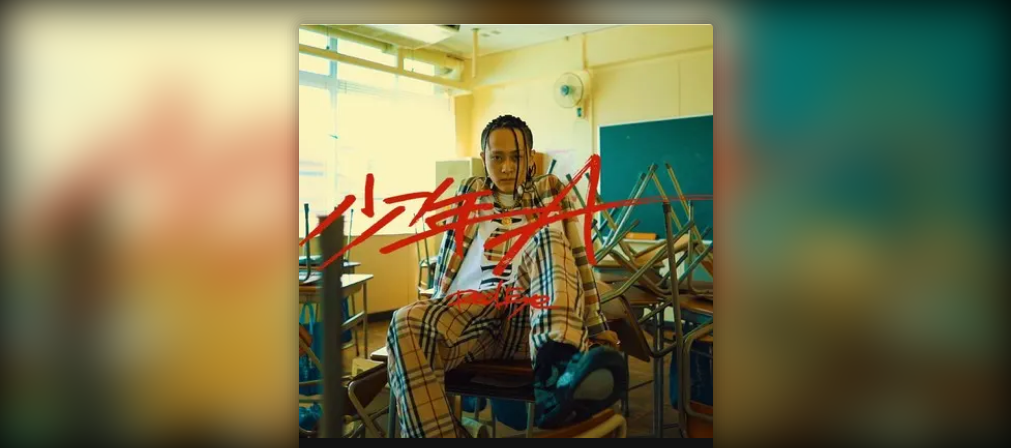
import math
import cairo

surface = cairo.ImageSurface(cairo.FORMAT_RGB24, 1011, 448)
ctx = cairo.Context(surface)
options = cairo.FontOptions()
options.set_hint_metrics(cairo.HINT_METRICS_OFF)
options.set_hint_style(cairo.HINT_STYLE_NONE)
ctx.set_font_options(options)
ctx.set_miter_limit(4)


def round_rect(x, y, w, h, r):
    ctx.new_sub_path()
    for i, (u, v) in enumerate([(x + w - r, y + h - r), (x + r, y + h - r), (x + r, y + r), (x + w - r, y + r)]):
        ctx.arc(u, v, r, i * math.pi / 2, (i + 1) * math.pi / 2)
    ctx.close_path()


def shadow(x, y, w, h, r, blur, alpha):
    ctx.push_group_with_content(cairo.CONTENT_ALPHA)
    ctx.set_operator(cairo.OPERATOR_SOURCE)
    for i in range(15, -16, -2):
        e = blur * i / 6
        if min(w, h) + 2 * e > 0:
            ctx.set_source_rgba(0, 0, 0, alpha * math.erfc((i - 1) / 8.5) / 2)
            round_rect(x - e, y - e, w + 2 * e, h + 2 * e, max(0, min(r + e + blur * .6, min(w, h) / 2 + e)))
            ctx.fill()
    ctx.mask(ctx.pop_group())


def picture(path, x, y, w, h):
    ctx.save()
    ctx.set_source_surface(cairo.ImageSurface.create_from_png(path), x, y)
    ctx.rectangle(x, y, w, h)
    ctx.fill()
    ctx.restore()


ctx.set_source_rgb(0, 0, 0)
ctx.paint()
picture("img1.png", 0, 0, 1011, 448)
shadow(299, 24, 414, 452, 4, 8, 0.47)
picture("img2.png", 299, 24, 414, 414)
ctx.set_source_rgb(0.067, 0.067, 0.067)
ctx.rectangle(299, 438, 414, 10)
ctx.fill()
surface.write_to_png("page.png")
